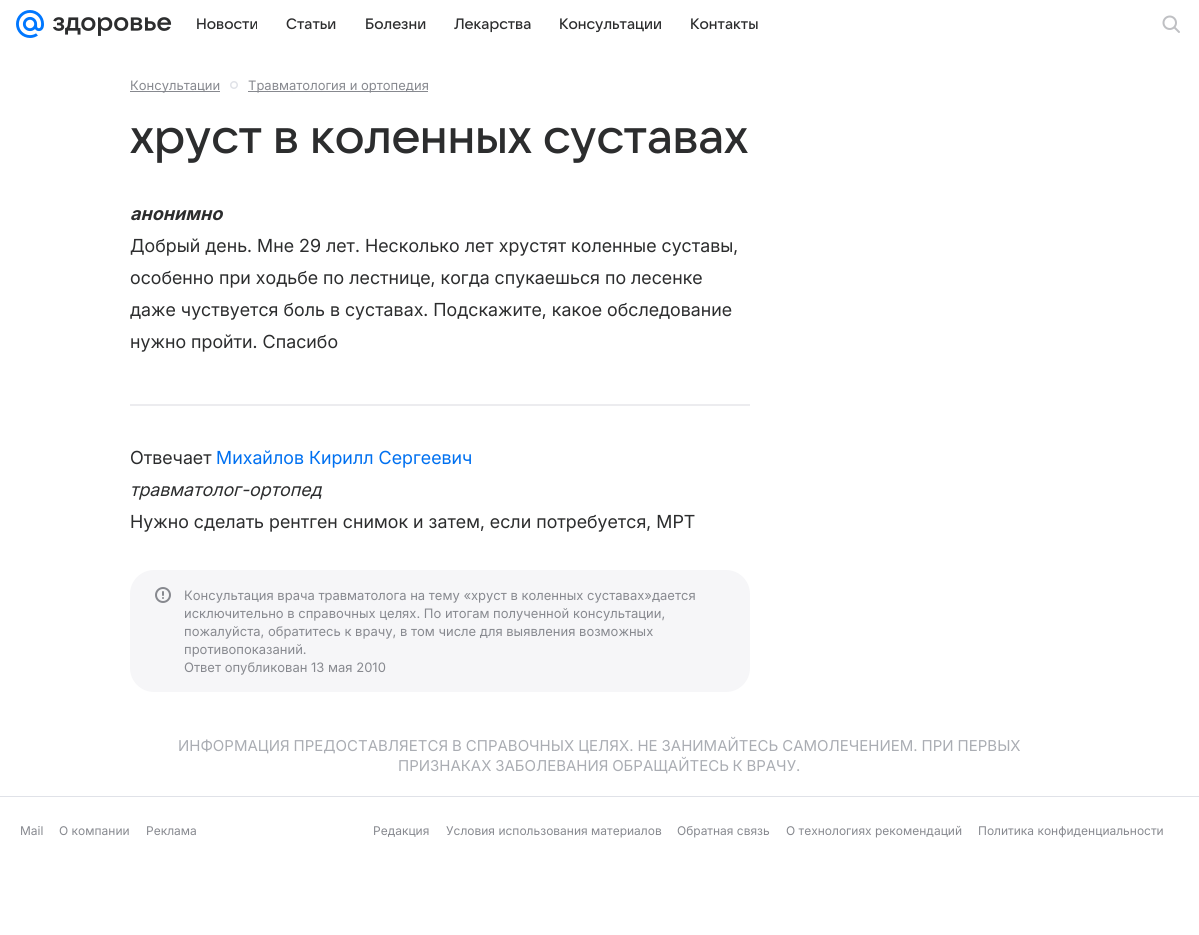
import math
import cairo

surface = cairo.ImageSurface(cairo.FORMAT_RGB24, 1199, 935)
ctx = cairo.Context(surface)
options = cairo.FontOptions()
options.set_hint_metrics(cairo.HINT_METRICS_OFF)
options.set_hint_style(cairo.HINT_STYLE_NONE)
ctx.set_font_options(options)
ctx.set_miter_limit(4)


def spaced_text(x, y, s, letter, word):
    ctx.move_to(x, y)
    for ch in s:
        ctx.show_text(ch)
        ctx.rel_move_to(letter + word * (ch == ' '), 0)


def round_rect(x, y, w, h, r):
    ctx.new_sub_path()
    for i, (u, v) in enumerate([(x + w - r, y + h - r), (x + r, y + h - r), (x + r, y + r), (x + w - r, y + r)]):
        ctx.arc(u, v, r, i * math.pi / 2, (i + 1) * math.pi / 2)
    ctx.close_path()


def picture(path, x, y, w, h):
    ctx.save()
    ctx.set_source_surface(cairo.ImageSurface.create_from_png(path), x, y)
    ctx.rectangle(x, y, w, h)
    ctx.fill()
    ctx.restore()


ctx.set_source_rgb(1, 1, 1)
ctx.paint()
picture("img1.png", 16, 10, 28, 28)
picture("img2.png", 53, 17, 119, 19)
ctx.select_font_face("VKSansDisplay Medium")
ctx.set_font_size(15)
ctx.set_source_rgb(0.173, 0.176, 0.18)
ctx.move_to(196, 29)
ctx.show_text("Новости")
ctx.move_to(286, 29)
ctx.show_text("Статьи")
ctx.move_to(365, 29)
ctx.show_text("Болезни")
ctx.move_to(454, 29)
ctx.show_text("Лекарства")
ctx.move_to(559, 29)
ctx.show_text("Консультации")
ctx.move_to(690, 29)
ctx.show_text("Контакты")
picture("img3.png", 1162, 15, 18, 18)
ctx.set_source_rgb(0.529, 0.537, 0.561)
ctx.rectangle(130, 91, 90, 1)
ctx.fill()
ctx.select_font_face("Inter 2")
ctx.set_font_size(13)
ctx.move_to(130, 90)
ctx.show_text("Консультации")
picture("img4.png", 230, 81, 8, 8)
ctx.rectangle(248, 91, 180, 1)
ctx.fill()
ctx.move_to(248, 90)
ctx.show_text("Травматология и ортопедия")
ctx.select_font_face("VKSansDisplay Medium")
ctx.set_font_size(48)
ctx.set_source_rgb(0.173, 0.176, 0.18)
spaced_text(130, 153, "хруст в коленных суставах", -0.25, 0)
ctx.select_font_face("Inter", cairo.FONT_SLANT_ITALIC, cairo.FONT_WEIGHT_BOLD)
ctx.set_font_size(18)
spaced_text(130, 220, "анонимно", 0.05, 0)
ctx.select_font_face("Inter")
spaced_text(130, 252, "Добрый день. Мне 29 лет. Несколько лет хрустят коленные суставы,", 0.05, 0)
spaced_text(130, 284, "особенно при ходьбе по лестнице, когда спукаешься по лесенке", 0.05, 0)
spaced_text(130, 316, "даже чуствуется боль в суставах. Подскажите, какое обследование", 0.05, 0)
spaced_text(130, 348, "нужно пройти. Спасибо", 0.05, 0)
ctx.set_source_rgb(0.922, 0.925, 0.937)
ctx.rectangle(130, 404, 620, 2)
ctx.fill()
ctx.set_source_rgb(0.173, 0.176, 0.18)
spaced_text(130, 464, "Отвечает", 0.05, 0)
ctx.set_source_rgb(0, 0.439, 0.941)
spaced_text(216, 464, "Михайлов Кирилл Сергеевич", 0.05, 0)
ctx.select_font_face("Inter", cairo.FONT_SLANT_ITALIC)
ctx.set_source_rgb(0.173, 0.176, 0.18)
spaced_text(130, 496, "травматолог-ортопед", 0.05, 0)
ctx.select_font_face("Inter")
spaced_text(130, 528, "Нужно сделать рентген снимок и затем, если потребуется, МРТ", 0.05, 0)
ctx.set_source_rgb(0.961, 0.961, 0.969)
round_rect(130, 570, 620, 122, 24)
ctx.fill()
picture("img5.png", 155, 587, 16, 16)
ctx.select_font_face("Inter 2")
ctx.set_font_size(13)
ctx.set_source_rgb(0.529, 0.537, 0.561)
ctx.move_to(184, 600)
ctx.show_text("Консультация врача травматолога на тему «хруст в коленных суставах»дается")
ctx.move_to(184, 618)
ctx.show_text("исключительно в справочных целях. По итогам полученной консультации,")
ctx.move_to(184, 636)
ctx.show_text("пожалуйста, обратитесь к врачу, в том числе для выявления возможных")
ctx.move_to(184, 654)
ctx.show_text("противопоказаний.")
ctx.move_to(184, 672)
ctx.show_text("Ответ опубликован 13 мая 2010")
ctx.set_font_size(15)
ctx.set_source_rgb(0.667, 0.678, 0.702)
spaced_text(178, 751, "ИНФОРМАЦИЯ ПРЕДОСТАВЛЯЕТСЯ В СПРАВОЧНЫХ ЦЕЛЯХ. НЕ ЗАНИМАЙТЕСЬ САМОЛЕЧЕНИЕМ. ПРИ ПЕРВЫХ", 0, -0.25)
spaced_text(398, 771, "ПРИЗНАКАХ ЗАБОЛЕВАНИЯ ОБРАЩАЙТЕСЬ К ВРАЧУ.", 0, -0.5)
ctx.set_source_rgb(0.878, 0.886, 0.91)
ctx.rectangle(0, 796, 1199, 1)
ctx.fill()
ctx.set_font_size(12)
ctx.set_source_rgb(0.529, 0.537, 0.561)
ctx.move_to(20, 835)
ctx.show_text("Mail")
ctx.move_to(59, 835)
ctx.show_text("О компании")
ctx.move_to(146, 835)
ctx.show_text("Реклама")
ctx.move_to(373, 835)
ctx.show_text("Редакция")
ctx.move_to(446, 835)
ctx.show_text("Условия использования материалов")
ctx.move_to(677, 835)
ctx.show_text("Обратная связь")
ctx.move_to(786, 835)
ctx.show_text("О технологиях рекомендаций")
ctx.move_to(978, 835)
ctx.show_text("Политика конфиденциальности")
surface.write_to_png("page.png")
